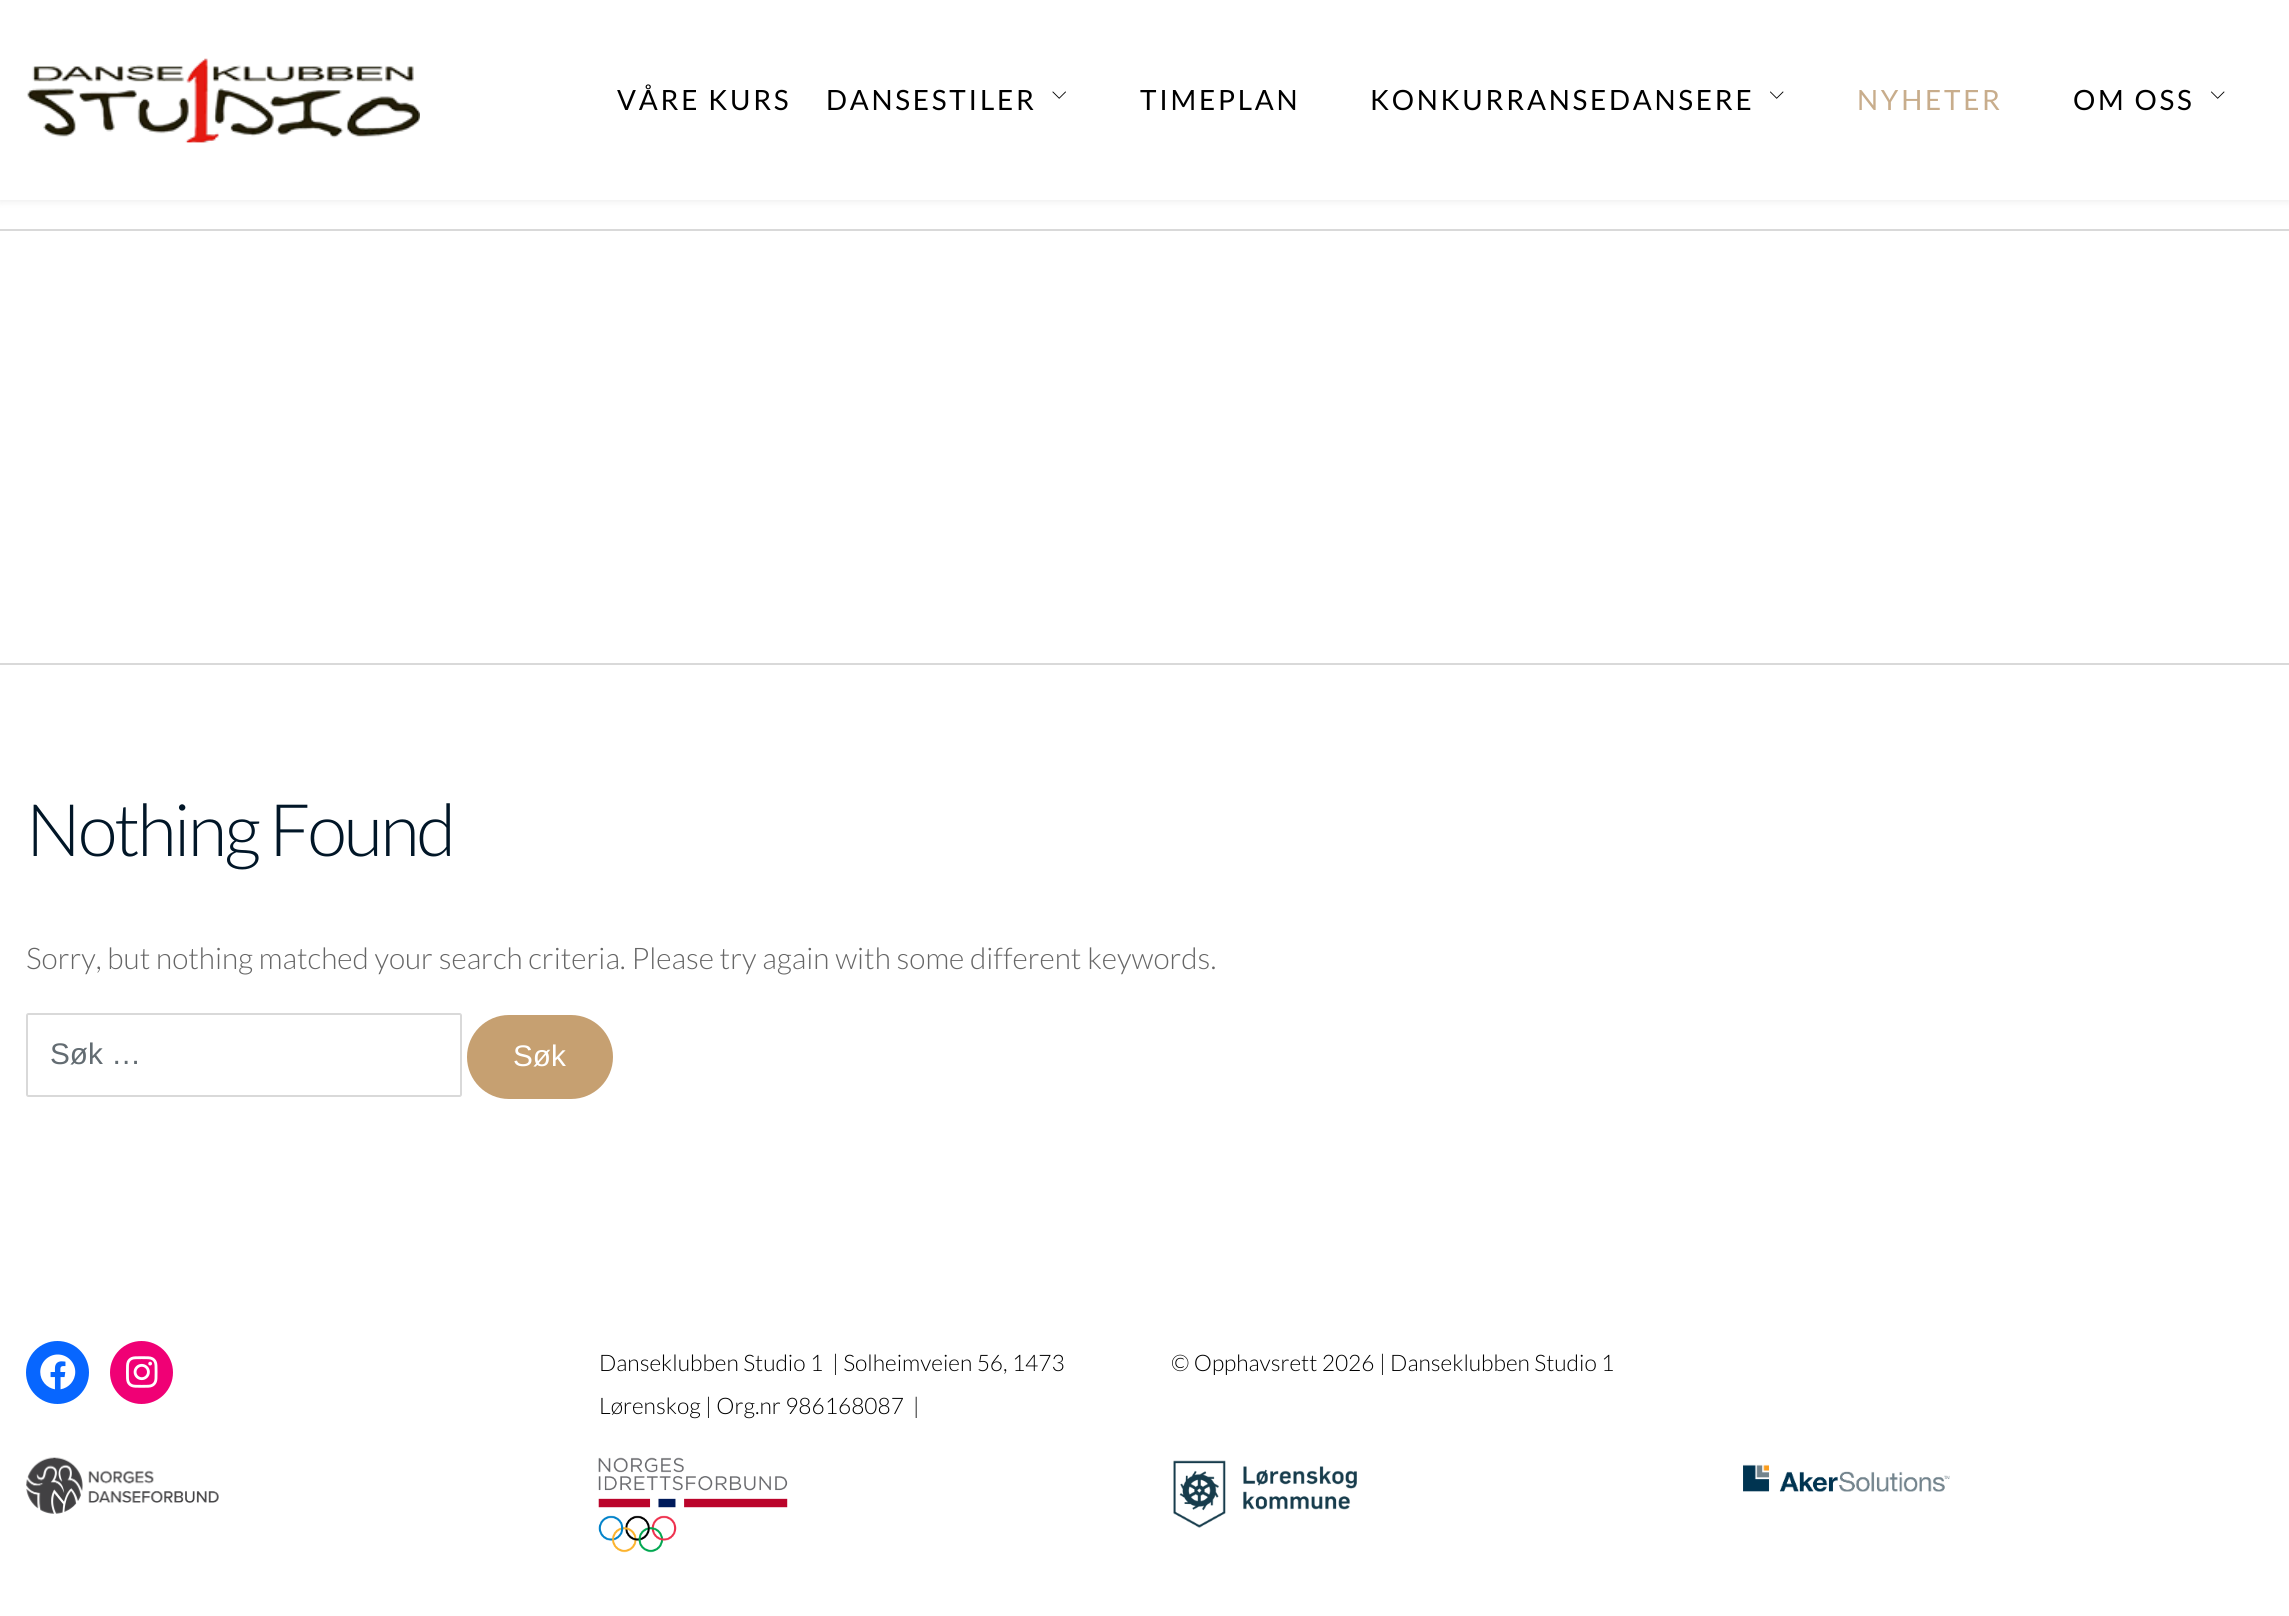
import math
import cairo

surface = cairo.ImageSurface(cairo.FORMAT_RGB24, 2289, 1616)
ctx = cairo.Context(surface)
options = cairo.FontOptions()
options.set_hint_metrics(cairo.HINT_METRICS_OFF)
options.set_hint_style(cairo.HINT_STYLE_NONE)
ctx.set_font_options(options)
ctx.set_miter_limit(4)


def spaced_text(x, y, s, letter, word):
    ctx.move_to(x, y)
    for ch in s:
        ctx.show_text(ch)
        ctx.rel_move_to(letter + word * (ch == ' '), 0)


def round_rect(x, y, w, h, r):
    ctx.new_sub_path()
    for i, (u, v) in enumerate([(x + w - r, y + h - r), (x + r, y + h - r), (x + r, y + r), (x + w - r, y + r)]):
        ctx.arc(u, v, r, i * math.pi / 2, (i + 1) * math.pi / 2)
    ctx.close_path()


def shadow(x, y, w, h, r, blur, alpha):
    ctx.push_group_with_content(cairo.CONTENT_ALPHA)
    ctx.set_operator(cairo.OPERATOR_SOURCE)
    for i in range(15, -16, -2):
        e = blur * i / 6
        if min(w, h) + 2 * e > 0:
            ctx.set_source_rgba(0, 0, 0, alpha * math.erfc((i - 1) / 8.5) / 2)
            round_rect(x - e, y - e, w + 2 * e, h + 2 * e, max(0, min(r + e + blur * .6, min(w, h) / 2 + e)))
            ctx.fill()
    ctx.mask(ctx.pop_group())


def picture(path, x, y, w, h):
    ctx.save()
    ctx.set_source_surface(cairo.ImageSurface.create_from_png(path), x, y)
    ctx.rectangle(x, y, w, h)
    ctx.fill()
    ctx.restore()


ctx.set_source_rgb(1, 1, 1)
ctx.paint()
ctx.set_source_rgb(0, 0, 0)
shadow(0, 0, 2289, 200, 0, 4.5, 0.1)
ctx.set_source_rgb(1, 1, 1)
ctx.rectangle(0, 0, 2289, 200)
ctx.fill()
picture("img1.png", 27, 58, 393, 85)
ctx.select_font_face("Lato")
ctx.set_font_size(27.9)
ctx.set_source_rgb(0, 0, 0)
spaced_text(617, 110, "VÅRE KURS", 2.75, 0)
spaced_text(826, 110, "DANSESTILER", 2.75, 0)
picture("img2.png", 1052, 91, 14, 8)
spaced_text(1140, 110, "TIMEPLAN", 2.75, 0)
spaced_text(1370, 110, "KONKURRANSEDANSERE", 2.75, 0)
picture("img3.png", 1770, 91, 14, 8)
ctx.set_source_rgb(0.784, 0.678, 0.549)
spaced_text(1857, 110, "NYHETER", 2.75, 0)
ctx.set_source_rgb(0, 0, 0)
spaced_text(2073, 110, "OM OSS", 2.75, 0)
picture("img3.png", 2211, 91, 14, 8)
ctx.set_source_rgb(0.851, 0.851, 0.851)
ctx.rectangle(0, 229, 2289, 2)
ctx.fill()
ctx.rectangle(0, 663, 2289, 2)
ctx.fill()
ctx.select_font_face("Lato Light")
ctx.set_font_size(72.5)
ctx.set_source_rgb(0.004, 0.086, 0.153)
spaced_text(26, 856, "Nothing Found", -2.9, 0)
ctx.set_font_size(29.75)
ctx.set_source_rgb(0.4, 0.4, 0.4)
ctx.move_to(26, 969)
ctx.show_text("Sorry, but nothing matched your search criteria. Please try again with some different keywords.")
round_rect(27, 1014, 434, 82, 1.5)
ctx.set_source_rgb(0.851, 0.851, 0.851)
ctx.stroke()
ctx.select_font_face("Liberation Sans")
ctx.set_source_rgb(0.388, 0.424, 0.447)
ctx.move_to(50, 1064)
ctx.show_text("Søk …")
ctx.set_source_rgb(0.776, 0.627, 0.443)
round_rect(467, 1015, 146, 84, 42)
ctx.fill()
ctx.set_source_rgb(1, 1, 1)
ctx.move_to(513, 1066)
ctx.show_text("Søk")
ctx.set_source_rgb(0.031, 0.4, 1)
ctx.new_path()
ctx.arc(57.5, 1372.5, 31.5, 0, 2 * math.pi)
ctx.fill()
picture("img4.png", 40, 1354, 36, 36)
ctx.set_source_rgb(0.941, 0, 0.459)
ctx.arc(141.5, 1372.5, 31.5, 0, 2 * math.pi)
ctx.fill()
picture("img5.png", 126, 1356, 32, 32)
ctx.select_font_face("Lato Light")
ctx.set_font_size(22.75)
ctx.set_source_rgb(0, 0, 0)
ctx.move_to(599, 1371)
ctx.show_text("Danseklubben Studio 1  | Solheimveien 56, 1473")
ctx.move_to(599, 1414)
ctx.show_text("Lørenskog | Org.nr 986168087  |")
ctx.move_to(1171, 1371)
ctx.show_text("© Opphavsrett 2026 | Danseklubben Studio 1")
picture("img6.png", 26, 1457, 193, 57)
picture("img7.png", 598, 1457, 190, 96)
picture("img8.png", 1173, 1460, 184, 68)
picture("img9.png", 1743, 1464, 207, 28)
surface.write_to_png("page.png")
